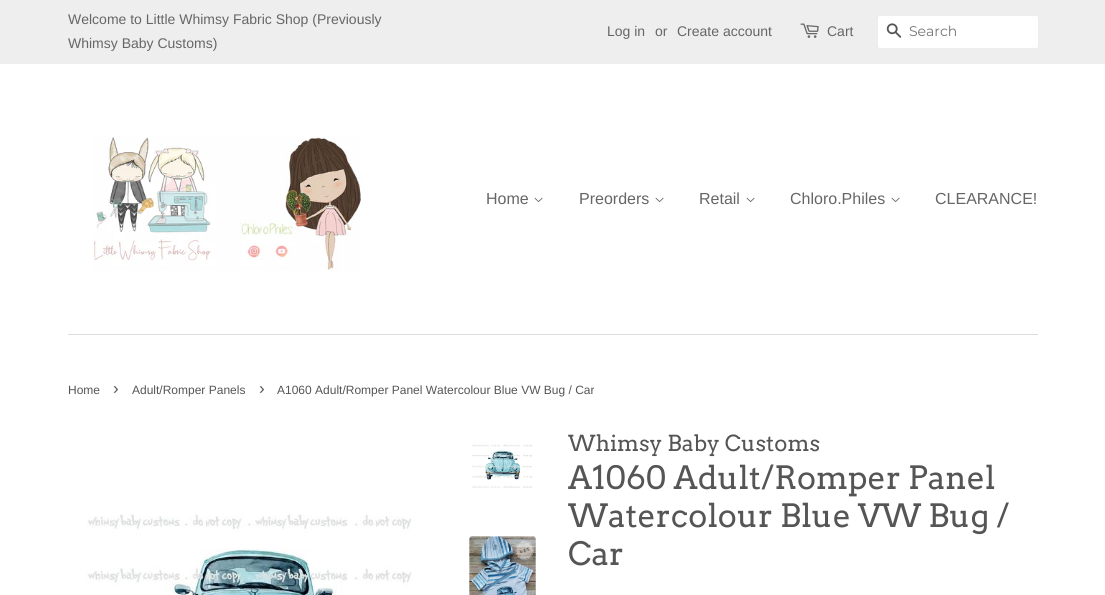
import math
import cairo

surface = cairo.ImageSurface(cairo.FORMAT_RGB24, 1105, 595)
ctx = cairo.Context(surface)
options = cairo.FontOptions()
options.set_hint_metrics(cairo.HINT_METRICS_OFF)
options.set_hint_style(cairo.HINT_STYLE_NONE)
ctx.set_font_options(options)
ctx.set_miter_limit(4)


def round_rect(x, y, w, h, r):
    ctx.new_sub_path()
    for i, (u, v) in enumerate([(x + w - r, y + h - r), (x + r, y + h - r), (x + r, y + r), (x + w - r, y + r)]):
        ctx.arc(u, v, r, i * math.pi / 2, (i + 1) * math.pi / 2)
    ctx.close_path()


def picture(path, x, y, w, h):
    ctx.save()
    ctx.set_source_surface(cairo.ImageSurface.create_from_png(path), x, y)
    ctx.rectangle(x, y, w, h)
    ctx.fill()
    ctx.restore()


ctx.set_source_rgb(1, 1, 1)
ctx.paint()
ctx.set_source_rgb(0.933, 0.933, 0.933)
ctx.rectangle(0, 0, 1105, 64)
ctx.fill()
ctx.select_font_face("Liberation Sans")
ctx.set_font_size(14)
ctx.set_source_rgb(0.4, 0.4, 0.4)
ctx.move_to(68, 24)
ctx.show_text("Welcome to Little Whimsy Fabric Shop (Previously")
ctx.move_to(68, 48)
ctx.show_text("Whimsy Baby Customs)")
ctx.move_to(607, 36)
ctx.show_text("Log in")
ctx.move_to(655, 36)
ctx.show_text("or")
ctx.move_to(677, 36)
ctx.show_text("Create account")
picture("img1.png", 800, 23, 19, 15)
ctx.move_to(827, 36)
ctx.show_text("Cart")
ctx.set_source_rgb(1, 1, 1)
round_rect(878, 16, 160, 32, 2)
ctx.fill()
picture("img2.png", 886, 23, 16, 15)
ctx.select_font_face("Montserrat")
ctx.set_source_rgb(0.459, 0.459, 0.459)
ctx.move_to(909, 36)
ctx.show_text("Search")
ctx.set_source_rgb(0.867, 0.867, 0.867)
ctx.rectangle(68, 334, 970, 1)
ctx.fill()
picture("img3.png", 93, 135, 268, 136)
ctx.select_font_face("Liberation Sans")
ctx.set_font_size(16)
ctx.set_source_rgb(0.4, 0.4, 0.4)
ctx.move_to(486, 204)
ctx.show_text("Home")
picture("img4.png", 534, 197, 9, 6)
ctx.move_to(579, 204)
ctx.show_text("Preorders")
picture("img4.png", 655, 197, 9, 6)
ctx.move_to(699, 204)
ctx.show_text("Retail")
picture("img4.png", 746, 197, 9, 6)
ctx.move_to(790, 204)
ctx.show_text("Chloro.Philes")
picture("img4.png", 891, 197, 9, 6)
ctx.move_to(935, 204)
ctx.show_text("CLEARANCE!")
ctx.set_font_size(12)
ctx.set_source_rgb(0.333, 0.333, 0.333)
ctx.move_to(68, 394)
ctx.show_text("Home")
ctx.set_font_size(17)
ctx.move_to(113, 394)
ctx.show_text("›")
ctx.set_font_size(12)
ctx.move_to(132, 394)
ctx.show_text("Adult/Romper Panels")
ctx.set_font_size(17)
ctx.move_to(259, 394)
ctx.show_text("›")
ctx.set_font_size(12)
ctx.move_to(277, 394)
ctx.show_text("A1060 Adult/Romper Panel Watercolour Blue VW Bug / Car")
picture("img5.png", 86, 514, 326, 81)
picture("img6.png", 471, 444, 62, 45)
picture("img7.png", 469, 536, 67, 59)
ctx.select_font_face("Arvo")
ctx.set_font_size(22)
ctx.move_to(568, 451)
ctx.show_text("Whimsy Baby Customs")
ctx.set_font_size(32)
ctx.move_to(568, 489)
ctx.show_text("A1060 Adult/Romper Panel")
ctx.move_to(568, 527)
ctx.show_text("Watercolour Blue VW Bug /")
ctx.move_to(568, 565)
ctx.show_text("Car")
surface.write_to_png("page.png")
